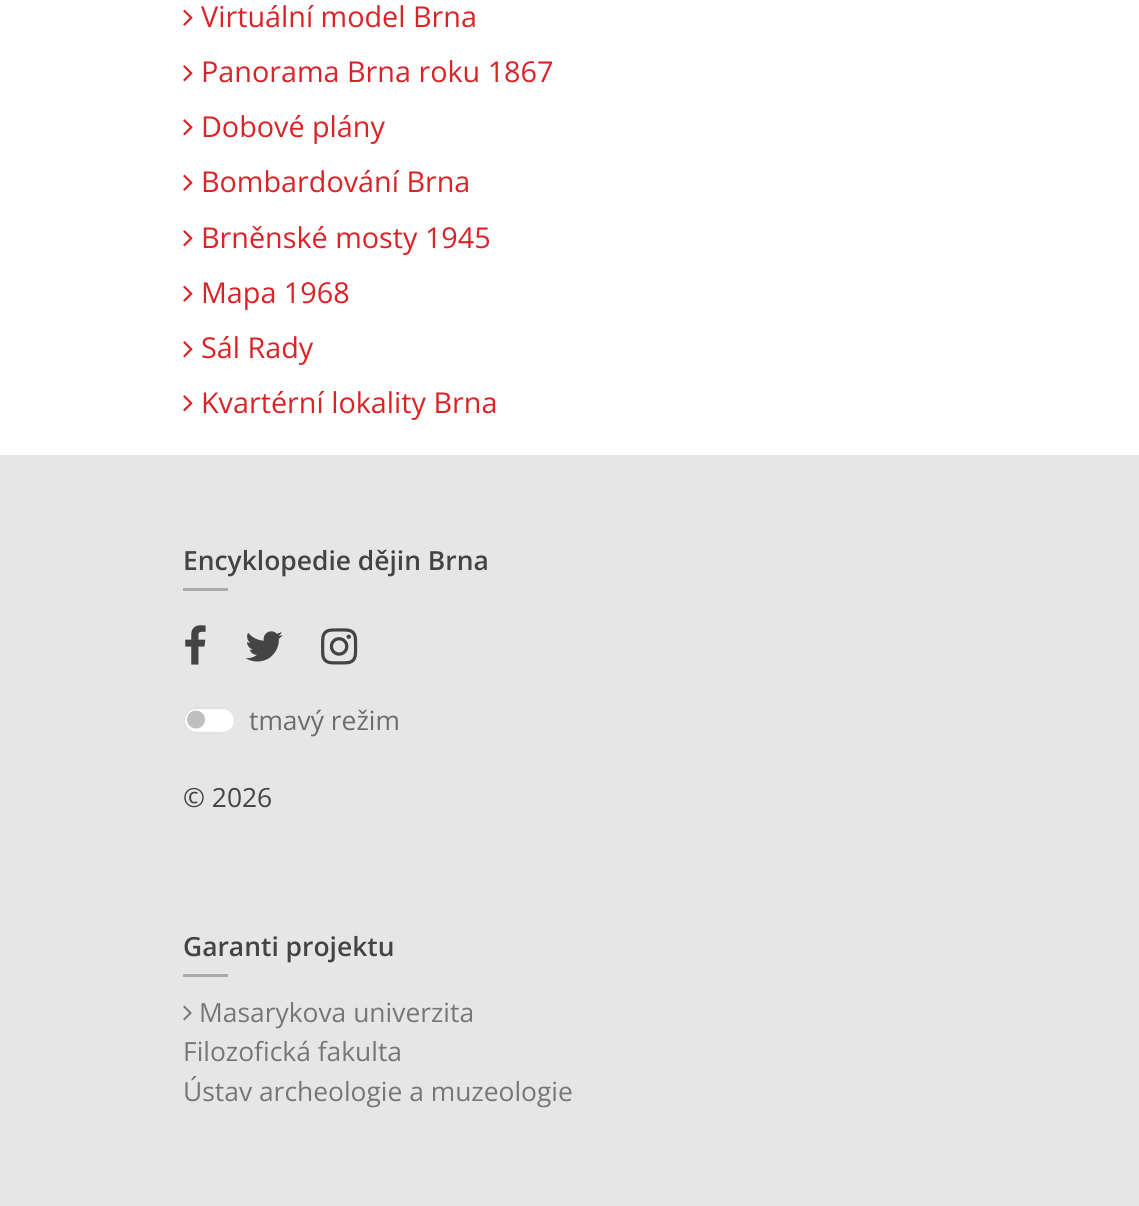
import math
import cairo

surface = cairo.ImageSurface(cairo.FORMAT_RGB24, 1139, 1206)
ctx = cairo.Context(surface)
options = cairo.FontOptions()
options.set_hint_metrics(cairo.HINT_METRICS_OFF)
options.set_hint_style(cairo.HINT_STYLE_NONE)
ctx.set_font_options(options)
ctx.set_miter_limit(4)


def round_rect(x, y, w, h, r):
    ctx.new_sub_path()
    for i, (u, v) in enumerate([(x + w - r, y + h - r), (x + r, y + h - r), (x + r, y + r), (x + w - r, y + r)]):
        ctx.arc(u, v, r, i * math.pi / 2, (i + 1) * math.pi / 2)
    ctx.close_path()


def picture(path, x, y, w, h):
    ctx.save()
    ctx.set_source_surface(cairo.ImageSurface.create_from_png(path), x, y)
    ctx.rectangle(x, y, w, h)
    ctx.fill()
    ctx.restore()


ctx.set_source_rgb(1, 1, 1)
ctx.paint()
picture("img1.png", 183, 9, 10, 17)
ctx.select_font_face("Open Sans")
ctx.set_font_size(28.75)
ctx.set_source_rgb(0.855, 0.137, 0.153)
ctx.move_to(201, 27)
ctx.show_text("Virtuální model Brna")
picture("img2.png", 183, 65, 10, 17)
ctx.move_to(201, 82)
ctx.show_text("Panorama Brna roku 1867")
picture("img2.png", 183, 119, 10, 17)
ctx.move_to(201, 137)
ctx.show_text("Dobové plány")
picture("img1.png", 183, 174, 10, 17)
ctx.move_to(201, 192)
ctx.show_text("Bombardování Brna")
picture("img2.png", 183, 230, 10, 17)
ctx.move_to(201, 248)
ctx.show_text("Brněnské mosty 1945")
picture("img1.png", 183, 285, 10, 17)
ctx.move_to(201, 303)
ctx.show_text("Mapa 1968")
picture("img2.png", 183, 341, 10, 17)
ctx.move_to(201, 358)
ctx.show_text("Sál Rady")
picture("img2.png", 183, 395, 10, 17)
ctx.move_to(201, 413)
ctx.show_text("Kvartérní lokality Brna")
ctx.set_source_rgb(0.902, 0.902, 0.902)
ctx.rectangle(0, 455, 1139, 751)
ctx.fill()
ctx.select_font_face("Open Sans SemiBold")
ctx.set_font_size(26.4)
ctx.set_source_rgb(0.267, 0.267, 0.267)
ctx.move_to(183, 570)
ctx.show_text("Encyklopedie dějin Brna")
ctx.set_source_rgb(0.667, 0.667, 0.667)
ctx.rectangle(183, 588, 45, 3)
ctx.fill()
picture("img3.png", 185, 625, 21, 40)
picture("img4.png", 245, 631, 38, 31)
picture("img5.png", 321, 628, 37, 37)
ctx.set_source_rgb(1, 1, 1)
round_rect(183, 707, 53, 27, 13.5)
ctx.fill()
ctx.set_source_rgb(0.749, 0.749, 0.749)
ctx.arc(196, 719.5, 9, 0, 2 * math.pi)
ctx.fill()
round_rect(184, 708, 51, 25, 12.5)
ctx.set_source_rgb(0.871, 0.886, 0.902)
ctx.stroke()
ctx.select_font_face("Open Sans")
ctx.set_source_rgb(0.427, 0.427, 0.427)
ctx.move_to(249, 730)
ctx.show_text("tmavý režim")
ctx.set_source_rgb(0.267, 0.267, 0.267)
ctx.move_to(183, 807)
ctx.show_text("© 2026")
ctx.select_font_face("Open Sans SemiBold")
ctx.move_to(183, 956)
ctx.show_text("Garanti projektu")
ctx.set_source_rgb(0.667, 0.667, 0.667)
ctx.rectangle(183, 974, 45, 3)
ctx.fill()
picture("img6.png", 183, 1005, 9, 16)
ctx.select_font_face("Open Sans")
ctx.set_source_rgb(0.467, 0.467, 0.467)
ctx.move_to(199, 1022)
ctx.show_text("Masarykova univerzita")
ctx.move_to(183, 1061)
ctx.show_text("Filozofická fakulta")
ctx.move_to(183, 1101)
ctx.show_text("Ústav archeologie a muzeologie")
surface.write_to_png("page.png")
